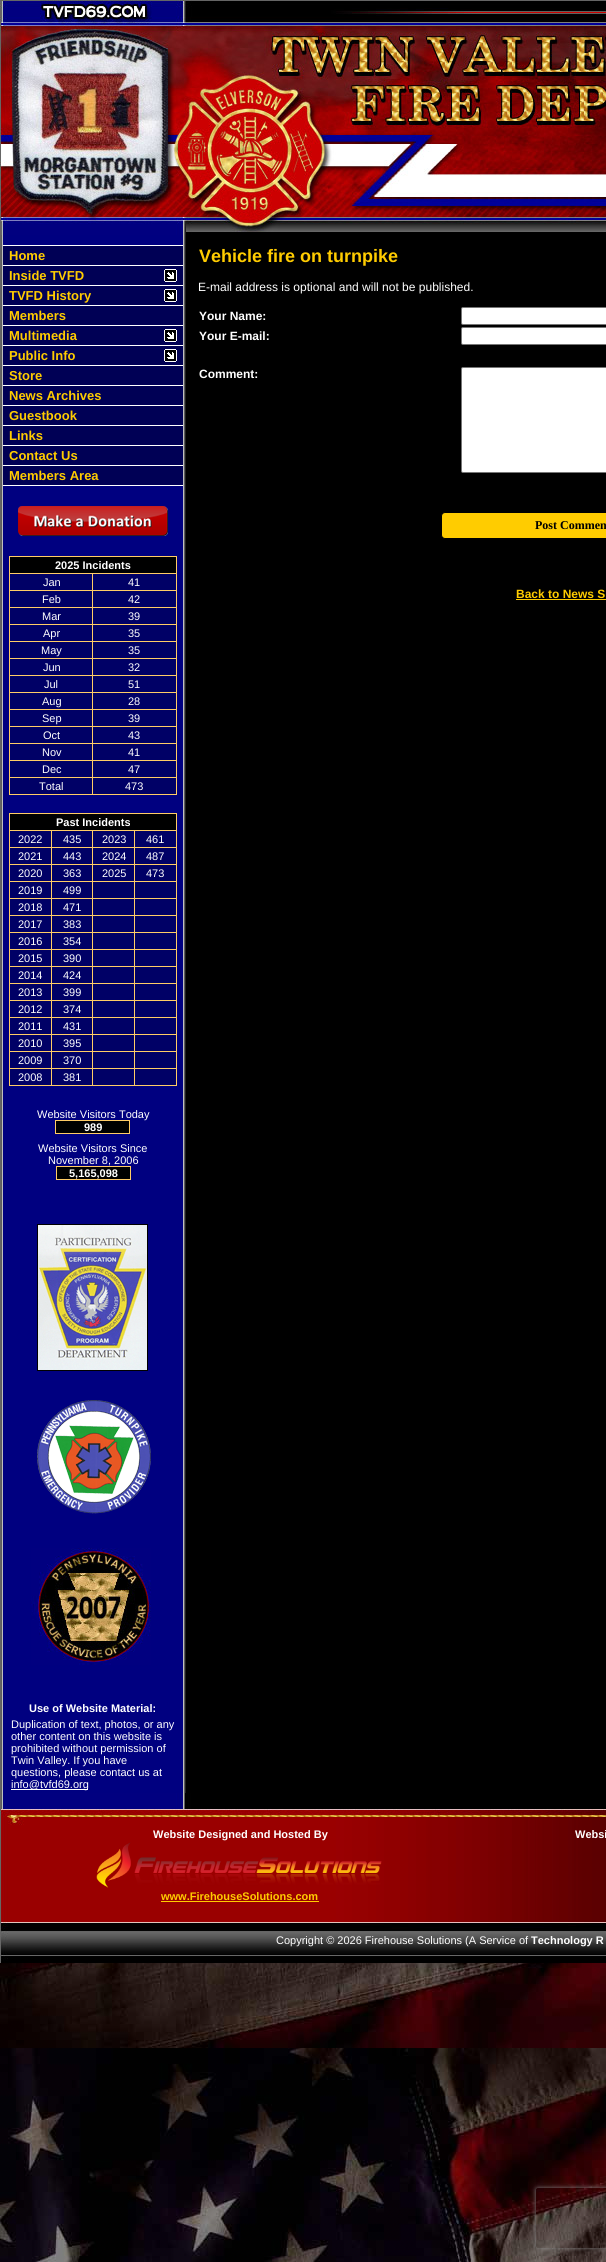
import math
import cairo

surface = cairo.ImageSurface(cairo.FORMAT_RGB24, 606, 2262)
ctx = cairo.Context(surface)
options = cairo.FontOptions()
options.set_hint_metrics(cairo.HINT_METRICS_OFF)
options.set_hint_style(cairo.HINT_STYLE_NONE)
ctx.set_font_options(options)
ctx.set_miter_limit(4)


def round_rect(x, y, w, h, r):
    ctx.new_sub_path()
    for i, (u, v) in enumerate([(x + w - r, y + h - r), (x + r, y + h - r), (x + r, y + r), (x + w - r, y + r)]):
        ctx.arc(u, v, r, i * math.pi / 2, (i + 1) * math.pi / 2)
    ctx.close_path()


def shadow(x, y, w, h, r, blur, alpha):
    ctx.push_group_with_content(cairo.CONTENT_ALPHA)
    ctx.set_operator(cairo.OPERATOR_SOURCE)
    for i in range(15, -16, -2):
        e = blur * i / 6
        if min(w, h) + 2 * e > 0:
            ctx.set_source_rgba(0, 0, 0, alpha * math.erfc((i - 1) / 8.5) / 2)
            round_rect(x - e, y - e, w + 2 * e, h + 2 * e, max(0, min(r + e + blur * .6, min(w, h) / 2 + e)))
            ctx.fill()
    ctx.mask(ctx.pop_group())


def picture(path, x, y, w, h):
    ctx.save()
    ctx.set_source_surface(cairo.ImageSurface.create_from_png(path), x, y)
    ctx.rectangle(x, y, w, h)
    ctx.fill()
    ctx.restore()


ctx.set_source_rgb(1, 1, 1)
ctx.paint()
picture("img1.png", 0, 1963, 606, 299)
picture("img2.png", 0, 0, 606, 235)
ctx.set_source_rgb(0.4, 0.4, 0.4)
ctx.rectangle(0, 235, 1, 1558)
ctx.fill()
ctx.set_source_rgb(0.373, 0.373, 0.373)
ctx.rectangle(1, 235, 1, 1558)
ctx.fill()
ctx.set_source_rgb(0.749, 0.749, 0.749)
ctx.rectangle(2, 235, 1, 1558)
ctx.fill()
ctx.set_source_rgb(0, 0, 0.502)
ctx.rectangle(3, 235, 180, 1558)
ctx.fill()
ctx.set_source_rgb(1, 1, 1)
ctx.rectangle(3, 245, 180, 1)
ctx.fill()
ctx.set_source_rgb(0, 0, 0.333)
ctx.rectangle(3, 246, 180, 239)
ctx.fill()
ctx.select_font_face("Liberation Sans", cairo.FONT_SLANT_NORMAL, cairo.FONT_WEIGHT_BOLD)
ctx.set_font_size(13)
ctx.set_source_rgb(1, 0.8, 0)
ctx.move_to(9, 260)
ctx.show_text("Home")
ctx.set_source_rgb(1, 1, 1)
ctx.rectangle(3, 265, 180, 1)
ctx.fill()
ctx.set_source_rgb(1, 0.8, 0)
ctx.move_to(9, 280)
ctx.show_text("Inside TVFD")
picture("img3.png", 164, 269, 13, 13)
ctx.set_source_rgb(1, 1, 1)
ctx.rectangle(3, 285, 180, 1)
ctx.fill()
ctx.set_source_rgb(1, 0.8, 0)
ctx.move_to(9, 300)
ctx.show_text("TVFD History")
picture("img3.png", 164, 289, 13, 13)
ctx.set_source_rgb(1, 1, 1)
ctx.rectangle(3, 305, 180, 1)
ctx.fill()
ctx.set_source_rgb(1, 0.8, 0)
ctx.move_to(9, 320)
ctx.show_text("Members")
ctx.set_source_rgb(1, 1, 1)
ctx.rectangle(3, 325, 180, 1)
ctx.fill()
ctx.set_source_rgb(1, 0.8, 0)
ctx.move_to(9, 340)
ctx.show_text("Multimedia")
picture("img3.png", 164, 329, 13, 13)
ctx.set_source_rgb(1, 1, 1)
ctx.rectangle(3, 345, 180, 1)
ctx.fill()
ctx.set_source_rgb(1, 0.8, 0)
ctx.move_to(9, 360)
ctx.show_text("Public Info")
picture("img3.png", 164, 349, 13, 13)
ctx.set_source_rgb(1, 1, 1)
ctx.rectangle(3, 365, 180, 1)
ctx.fill()
ctx.set_source_rgb(1, 0.8, 0)
ctx.move_to(9, 380)
ctx.show_text("Store")
ctx.set_source_rgb(1, 1, 1)
ctx.rectangle(3, 385, 180, 1)
ctx.fill()
ctx.set_source_rgb(1, 0.8, 0)
ctx.move_to(9, 400)
ctx.show_text("News Archives")
ctx.set_source_rgb(1, 1, 1)
ctx.rectangle(3, 405, 180, 1)
ctx.fill()
ctx.set_source_rgb(1, 0.8, 0)
ctx.move_to(9, 420)
ctx.show_text("Guestbook")
ctx.set_source_rgb(1, 1, 1)
ctx.rectangle(3, 425, 180, 1)
ctx.fill()
ctx.set_source_rgb(1, 0.8, 0)
ctx.move_to(9, 440)
ctx.show_text("Links")
ctx.set_source_rgb(1, 1, 1)
ctx.rectangle(3, 445, 180, 1)
ctx.fill()
ctx.set_source_rgb(1, 0.8, 0)
ctx.move_to(9, 460)
ctx.show_text("Contact Us")
ctx.set_source_rgb(1, 1, 1)
ctx.rectangle(3, 465, 180, 1)
ctx.fill()
ctx.set_source_rgb(1, 0.8, 0)
ctx.move_to(9, 480)
ctx.show_text("Members Area")
ctx.set_source_rgb(1, 1, 1)
ctx.rectangle(3, 485, 180, 1)
ctx.fill()
picture("img4.png", 18, 506, 150, 30)
ctx.set_source_rgb(1, 0.8, 0.4)
ctx.rectangle(9, 556, 168, 239)
ctx.fill()
ctx.set_source_rgb(0, 0, 0)
ctx.rectangle(10, 557, 166, 16)
ctx.fill()
ctx.set_font_size(11)
ctx.set_source_rgb(1, 1, 1)
ctx.move_to(55, 569)
ctx.show_text("2025 Incidents")
ctx.set_source_rgb(0, 0, 0.4)
ctx.rectangle(10, 574, 82, 16)
ctx.fill()
ctx.select_font_face("Liberation Sans")
ctx.set_source_rgb(1, 1, 1)
ctx.move_to(43, 586)
ctx.show_text("Jan")
ctx.set_source_rgb(0, 0, 0.4)
ctx.rectangle(93, 574, 83, 16)
ctx.fill()
ctx.set_source_rgb(1, 1, 1)
ctx.move_to(128, 586)
ctx.show_text("41")
ctx.set_source_rgb(0, 0, 0.4)
ctx.rectangle(10, 591, 82, 16)
ctx.fill()
ctx.set_source_rgb(1, 1, 1)
ctx.move_to(42, 603)
ctx.show_text("Feb")
ctx.set_source_rgb(0, 0, 0.4)
ctx.rectangle(93, 591, 83, 16)
ctx.fill()
ctx.set_source_rgb(1, 1, 1)
ctx.move_to(128, 603)
ctx.show_text("42")
ctx.set_source_rgb(0, 0, 0.4)
ctx.rectangle(10, 608, 82, 16)
ctx.fill()
ctx.set_source_rgb(1, 1, 1)
ctx.move_to(42, 620)
ctx.show_text("Mar")
ctx.set_source_rgb(0, 0, 0.4)
ctx.rectangle(93, 608, 83, 16)
ctx.fill()
ctx.set_source_rgb(1, 1, 1)
ctx.move_to(128, 620)
ctx.show_text("39")
ctx.set_source_rgb(0, 0, 0.4)
ctx.rectangle(10, 625, 82, 16)
ctx.fill()
ctx.set_source_rgb(1, 1, 1)
ctx.move_to(43, 637)
ctx.show_text("Apr")
ctx.set_source_rgb(0, 0, 0.4)
ctx.rectangle(93, 625, 83, 16)
ctx.fill()
ctx.set_source_rgb(1, 1, 1)
ctx.move_to(128, 637)
ctx.show_text("35")
ctx.set_source_rgb(0, 0, 0.4)
ctx.rectangle(10, 642, 82, 16)
ctx.fill()
ctx.set_source_rgb(1, 1, 1)
ctx.move_to(41, 654)
ctx.show_text("May")
ctx.set_source_rgb(0, 0, 0.4)
ctx.rectangle(93, 642, 83, 16)
ctx.fill()
ctx.set_source_rgb(1, 1, 1)
ctx.move_to(128, 654)
ctx.show_text("35")
ctx.set_source_rgb(0, 0, 0.4)
ctx.rectangle(10, 659, 82, 16)
ctx.fill()
ctx.set_source_rgb(1, 1, 1)
ctx.move_to(43, 671)
ctx.show_text("Jun")
ctx.set_source_rgb(0, 0, 0.4)
ctx.rectangle(93, 659, 83, 16)
ctx.fill()
ctx.set_source_rgb(1, 1, 1)
ctx.move_to(128, 671)
ctx.show_text("32")
ctx.set_source_rgb(0, 0, 0.4)
ctx.rectangle(10, 676, 82, 16)
ctx.fill()
ctx.set_source_rgb(1, 1, 1)
ctx.move_to(44, 688)
ctx.show_text("Jul")
ctx.set_source_rgb(0, 0, 0.4)
ctx.rectangle(93, 676, 83, 16)
ctx.fill()
ctx.set_source_rgb(1, 1, 1)
ctx.move_to(128, 688)
ctx.show_text("51")
ctx.set_source_rgb(0, 0, 0.4)
ctx.rectangle(10, 693, 82, 16)
ctx.fill()
ctx.set_source_rgb(1, 1, 1)
ctx.move_to(42, 705)
ctx.show_text("Aug")
ctx.set_source_rgb(0, 0, 0.4)
ctx.rectangle(93, 693, 83, 16)
ctx.fill()
ctx.set_source_rgb(1, 1, 1)
ctx.move_to(128, 705)
ctx.show_text("28")
ctx.set_source_rgb(0, 0, 0.4)
ctx.rectangle(10, 710, 82, 16)
ctx.fill()
ctx.set_source_rgb(1, 1, 1)
ctx.move_to(42, 722)
ctx.show_text("Sep")
ctx.set_source_rgb(0, 0, 0.4)
ctx.rectangle(93, 710, 83, 16)
ctx.fill()
ctx.set_source_rgb(1, 1, 1)
ctx.move_to(128, 722)
ctx.show_text("39")
ctx.set_source_rgb(0, 0, 0.4)
ctx.rectangle(10, 727, 82, 16)
ctx.fill()
ctx.set_source_rgb(1, 1, 1)
ctx.move_to(43, 739)
ctx.show_text("Oct")
ctx.set_source_rgb(0, 0, 0.4)
ctx.rectangle(93, 727, 83, 16)
ctx.fill()
ctx.set_source_rgb(1, 1, 1)
ctx.move_to(128, 739)
ctx.show_text("43")
ctx.set_source_rgb(0, 0, 0.4)
ctx.rectangle(10, 744, 82, 16)
ctx.fill()
ctx.set_source_rgb(1, 1, 1)
ctx.move_to(42, 756)
ctx.show_text("Nov")
ctx.set_source_rgb(0, 0, 0.4)
ctx.rectangle(93, 744, 83, 16)
ctx.fill()
ctx.set_source_rgb(1, 1, 1)
ctx.move_to(128, 756)
ctx.show_text("41")
ctx.set_source_rgb(0, 0, 0.4)
ctx.rectangle(10, 761, 82, 16)
ctx.fill()
ctx.set_source_rgb(1, 1, 1)
ctx.move_to(42, 773)
ctx.show_text("Dec")
ctx.set_source_rgb(0, 0, 0.4)
ctx.rectangle(93, 761, 83, 16)
ctx.fill()
ctx.set_source_rgb(1, 1, 1)
ctx.move_to(128, 773)
ctx.show_text("47")
ctx.set_source_rgb(0, 0, 0.4)
ctx.rectangle(10, 778, 82, 16)
ctx.fill()
ctx.set_source_rgb(1, 1, 1)
ctx.move_to(39, 790)
ctx.show_text("Total")
ctx.set_source_rgb(0, 0, 0.4)
ctx.rectangle(93, 778, 83, 16)
ctx.fill()
ctx.set_source_rgb(1, 1, 1)
ctx.move_to(125, 790)
ctx.show_text("473")
ctx.set_source_rgb(1, 0.8, 0.4)
ctx.rectangle(9, 813, 168, 273)
ctx.fill()
ctx.set_source_rgb(0, 0, 0)
ctx.rectangle(10, 814, 166, 16)
ctx.fill()
ctx.select_font_face("Liberation Sans", cairo.FONT_SLANT_NORMAL, cairo.FONT_WEIGHT_BOLD)
ctx.set_source_rgb(1, 1, 1)
ctx.move_to(56, 826)
ctx.show_text("Past Incidents")
ctx.set_source_rgb(0, 0, 0.4)
ctx.rectangle(10, 831, 41, 16)
ctx.fill()
ctx.select_font_face("Liberation Sans")
ctx.set_source_rgb(1, 1, 1)
ctx.move_to(18, 843)
ctx.show_text("2022")
ctx.set_source_rgb(0, 0, 0.4)
ctx.rectangle(52, 831, 40, 16)
ctx.fill()
ctx.set_source_rgb(1, 1, 1)
ctx.move_to(63, 843)
ctx.show_text("435")
ctx.set_source_rgb(0, 0, 0.4)
ctx.rectangle(93, 831, 41, 16)
ctx.fill()
ctx.set_source_rgb(1, 1, 1)
ctx.move_to(102, 843)
ctx.show_text("2023")
ctx.set_source_rgb(0, 0, 0.4)
ctx.rectangle(135, 831, 41, 16)
ctx.fill()
ctx.set_source_rgb(1, 1, 1)
ctx.move_to(146, 843)
ctx.show_text("461")
ctx.set_source_rgb(0, 0, 0.4)
ctx.rectangle(10, 848, 41, 16)
ctx.fill()
ctx.set_source_rgb(1, 1, 1)
ctx.move_to(18, 860)
ctx.show_text("2021")
ctx.set_source_rgb(0, 0, 0.4)
ctx.rectangle(52, 848, 40, 16)
ctx.fill()
ctx.set_source_rgb(1, 1, 1)
ctx.move_to(63, 860)
ctx.show_text("443")
ctx.set_source_rgb(0, 0, 0.4)
ctx.rectangle(93, 848, 41, 16)
ctx.fill()
ctx.set_source_rgb(1, 1, 1)
ctx.move_to(102, 860)
ctx.show_text("2024")
ctx.set_source_rgb(0, 0, 0.4)
ctx.rectangle(135, 848, 41, 16)
ctx.fill()
ctx.set_source_rgb(1, 1, 1)
ctx.move_to(146, 860)
ctx.show_text("487")
ctx.set_source_rgb(0, 0, 0.4)
ctx.rectangle(10, 865, 41, 16)
ctx.fill()
ctx.set_source_rgb(1, 1, 1)
ctx.move_to(18, 877)
ctx.show_text("2020")
ctx.set_source_rgb(0, 0, 0.4)
ctx.rectangle(52, 865, 40, 16)
ctx.fill()
ctx.set_source_rgb(1, 1, 1)
ctx.move_to(63, 877)
ctx.show_text("363")
ctx.set_source_rgb(0, 0, 0.4)
ctx.rectangle(93, 865, 41, 16)
ctx.fill()
ctx.set_source_rgb(1, 1, 1)
ctx.move_to(102, 877)
ctx.show_text("2025")
ctx.set_source_rgb(0, 0, 0.4)
ctx.rectangle(135, 865, 41, 16)
ctx.fill()
ctx.set_source_rgb(1, 1, 1)
ctx.move_to(146, 877)
ctx.show_text("473")
ctx.set_source_rgb(0, 0, 0.4)
ctx.rectangle(10, 882, 41, 16)
ctx.fill()
ctx.set_source_rgb(1, 1, 1)
ctx.move_to(18, 894)
ctx.show_text("2019")
ctx.set_source_rgb(0, 0, 0.4)
ctx.rectangle(52, 882, 40, 16)
ctx.fill()
ctx.set_source_rgb(1, 1, 1)
ctx.move_to(63, 894)
ctx.show_text("499")
ctx.set_source_rgb(0, 0, 0.4)
ctx.rectangle(93, 882, 41, 16)
ctx.fill()
ctx.rectangle(135, 882, 41, 16)
ctx.fill()
ctx.rectangle(10, 899, 41, 16)
ctx.fill()
ctx.set_source_rgb(1, 1, 1)
ctx.move_to(18, 911)
ctx.show_text("2018")
ctx.set_source_rgb(0, 0, 0.4)
ctx.rectangle(52, 899, 40, 16)
ctx.fill()
ctx.set_source_rgb(1, 1, 1)
ctx.move_to(63, 911)
ctx.show_text("471")
ctx.set_source_rgb(0, 0, 0.4)
ctx.rectangle(93, 899, 41, 16)
ctx.fill()
ctx.rectangle(135, 899, 41, 16)
ctx.fill()
ctx.rectangle(10, 916, 41, 16)
ctx.fill()
ctx.set_source_rgb(1, 1, 1)
ctx.move_to(18, 928)
ctx.show_text("2017")
ctx.set_source_rgb(0, 0, 0.4)
ctx.rectangle(52, 916, 40, 16)
ctx.fill()
ctx.set_source_rgb(1, 1, 1)
ctx.move_to(63, 928)
ctx.show_text("383")
ctx.set_source_rgb(0, 0, 0.4)
ctx.rectangle(93, 916, 41, 16)
ctx.fill()
ctx.rectangle(135, 916, 41, 16)
ctx.fill()
ctx.rectangle(10, 933, 41, 16)
ctx.fill()
ctx.set_source_rgb(1, 1, 1)
ctx.move_to(18, 945)
ctx.show_text("2016")
ctx.set_source_rgb(0, 0, 0.4)
ctx.rectangle(52, 933, 40, 16)
ctx.fill()
ctx.set_source_rgb(1, 1, 1)
ctx.move_to(63, 945)
ctx.show_text("354")
ctx.set_source_rgb(0, 0, 0.4)
ctx.rectangle(93, 933, 41, 16)
ctx.fill()
ctx.rectangle(135, 933, 41, 16)
ctx.fill()
ctx.rectangle(10, 950, 41, 16)
ctx.fill()
ctx.set_source_rgb(1, 1, 1)
ctx.move_to(18, 962)
ctx.show_text("2015")
ctx.set_source_rgb(0, 0, 0.4)
ctx.rectangle(52, 950, 40, 16)
ctx.fill()
ctx.set_source_rgb(1, 1, 1)
ctx.move_to(63, 962)
ctx.show_text("390")
ctx.set_source_rgb(0, 0, 0.4)
ctx.rectangle(93, 950, 41, 16)
ctx.fill()
ctx.rectangle(135, 950, 41, 16)
ctx.fill()
ctx.rectangle(10, 967, 41, 16)
ctx.fill()
ctx.set_source_rgb(1, 1, 1)
ctx.move_to(18, 979)
ctx.show_text("2014")
ctx.set_source_rgb(0, 0, 0.4)
ctx.rectangle(52, 967, 40, 16)
ctx.fill()
ctx.set_source_rgb(1, 1, 1)
ctx.move_to(63, 979)
ctx.show_text("424")
ctx.set_source_rgb(0, 0, 0.4)
ctx.rectangle(93, 967, 41, 16)
ctx.fill()
ctx.rectangle(135, 967, 41, 16)
ctx.fill()
ctx.rectangle(10, 984, 41, 16)
ctx.fill()
ctx.set_source_rgb(1, 1, 1)
ctx.move_to(18, 996)
ctx.show_text("2013")
ctx.set_source_rgb(0, 0, 0.4)
ctx.rectangle(52, 984, 40, 16)
ctx.fill()
ctx.set_source_rgb(1, 1, 1)
ctx.move_to(63, 996)
ctx.show_text("399")
ctx.set_source_rgb(0, 0, 0.4)
ctx.rectangle(93, 984, 41, 16)
ctx.fill()
ctx.rectangle(135, 984, 41, 16)
ctx.fill()
ctx.rectangle(10, 1001, 41, 16)
ctx.fill()
ctx.set_source_rgb(1, 1, 1)
ctx.move_to(18, 1013)
ctx.show_text("2012")
ctx.set_source_rgb(0, 0, 0.4)
ctx.rectangle(52, 1001, 40, 16)
ctx.fill()
ctx.set_source_rgb(1, 1, 1)
ctx.move_to(63, 1013)
ctx.show_text("374")
ctx.set_source_rgb(0, 0, 0.4)
ctx.rectangle(93, 1001, 41, 16)
ctx.fill()
ctx.rectangle(135, 1001, 41, 16)
ctx.fill()
ctx.rectangle(10, 1018, 41, 16)
ctx.fill()
ctx.set_source_rgb(1, 1, 1)
ctx.move_to(18, 1030)
ctx.show_text("2011")
ctx.set_source_rgb(0, 0, 0.4)
ctx.rectangle(52, 1018, 40, 16)
ctx.fill()
ctx.set_source_rgb(1, 1, 1)
ctx.move_to(63, 1030)
ctx.show_text("431")
ctx.set_source_rgb(0, 0, 0.4)
ctx.rectangle(93, 1018, 41, 16)
ctx.fill()
ctx.rectangle(135, 1018, 41, 16)
ctx.fill()
ctx.rectangle(10, 1035, 41, 16)
ctx.fill()
ctx.set_source_rgb(1, 1, 1)
ctx.move_to(18, 1047)
ctx.show_text("2010")
ctx.set_source_rgb(0, 0, 0.4)
ctx.rectangle(52, 1035, 40, 16)
ctx.fill()
ctx.set_source_rgb(1, 1, 1)
ctx.move_to(63, 1047)
ctx.show_text("395")
ctx.set_source_rgb(0, 0, 0.4)
ctx.rectangle(93, 1035, 41, 16)
ctx.fill()
ctx.rectangle(135, 1035, 41, 16)
ctx.fill()
ctx.rectangle(10, 1052, 41, 16)
ctx.fill()
ctx.set_source_rgb(1, 1, 1)
ctx.move_to(18, 1064)
ctx.show_text("2009")
ctx.set_source_rgb(0, 0, 0.4)
ctx.rectangle(52, 1052, 40, 16)
ctx.fill()
ctx.set_source_rgb(1, 1, 1)
ctx.move_to(63, 1064)
ctx.show_text("370")
ctx.set_source_rgb(0, 0, 0.4)
ctx.rectangle(93, 1052, 41, 16)
ctx.fill()
ctx.rectangle(135, 1052, 41, 16)
ctx.fill()
ctx.rectangle(10, 1069, 41, 16)
ctx.fill()
ctx.set_source_rgb(1, 1, 1)
ctx.move_to(18, 1081)
ctx.show_text("2008")
ctx.set_source_rgb(0, 0, 0.4)
ctx.rectangle(52, 1069, 40, 16)
ctx.fill()
ctx.set_source_rgb(1, 1, 1)
ctx.move_to(63, 1081)
ctx.show_text("381")
ctx.set_source_rgb(0, 0, 0.4)
ctx.rectangle(93, 1069, 41, 16)
ctx.fill()
ctx.rectangle(135, 1069, 41, 16)
ctx.fill()
ctx.set_source_rgb(1, 0.8, 0.4)
ctx.rectangle(55, 1120, 75, 14)
ctx.fill()
ctx.set_source_rgb(1, 1, 1)
ctx.move_to(37, 1118)
ctx.show_text("Website Visitors Today")
ctx.set_source_rgb(0, 0, 0)
ctx.rectangle(56, 1121, 73, 12)
ctx.fill()
ctx.select_font_face("Liberation Sans", cairo.FONT_SLANT_NORMAL, cairo.FONT_WEIGHT_BOLD)
ctx.set_source_rgb(1, 1, 1)
ctx.move_to(84, 1131)
ctx.show_text("989")
ctx.select_font_face("Liberation Sans")
ctx.move_to(38, 1152)
ctx.show_text("Website Visitors Since")
ctx.move_to(48, 1164)
ctx.show_text("November 8, 2006")
ctx.set_source_rgb(1, 0.8, 0.4)
ctx.rectangle(56, 1166, 75, 14)
ctx.fill()
ctx.set_source_rgb(0, 0, 0)
ctx.rectangle(57, 1167, 73, 12)
ctx.fill()
ctx.select_font_face("Liberation Sans", cairo.FONT_SLANT_NORMAL, cairo.FONT_WEIGHT_BOLD)
ctx.set_source_rgb(1, 1, 1)
ctx.move_to(69, 1177)
ctx.show_text("5,165,098")
picture("img5.png", 37, 1224, 111, 147)
picture("img6.png", 37, 1400, 114, 114)
picture("img7.png", 31, 1548, 120, 117)
ctx.move_to(29, 1712)
ctx.show_text("Use of Website Material:")
ctx.select_font_face("Liberation Sans")
ctx.move_to(11, 1728)
ctx.show_text("Duplication of text, photos, or any")
ctx.move_to(11, 1740)
ctx.show_text("other content on this website is")
ctx.move_to(11, 1752)
ctx.show_text("prohibited without permission of")
ctx.move_to(11, 1764)
ctx.show_text("Twin Valley. If you have")
ctx.move_to(11, 1776)
ctx.show_text("questions, please contact us at")
ctx.rectangle(11, 1789, 77, 1)
ctx.fill()
ctx.move_to(11, 1788)
ctx.show_text("info@tvfd69.org")
ctx.set_source_rgb(0.749, 0.749, 0.749)
ctx.rectangle(183, 235, 1, 1558)
ctx.fill()
ctx.set_source_rgb(0.373, 0.373, 0.373)
ctx.rectangle(184, 235, 1, 1558)
ctx.fill()
ctx.set_source_rgb(0.125, 0.125, 0.125)
ctx.rectangle(185, 235, 1, 1558)
ctx.fill()
ctx.set_source_rgb(0, 0, 0)
ctx.rectangle(186, 235, 420, 1558)
ctx.fill()
ctx.select_font_face("Liberation Sans", cairo.FONT_SLANT_NORMAL, cairo.FONT_WEIGHT_BOLD)
ctx.set_font_size(18)
ctx.set_source_rgb(1, 0.8, 0)
ctx.move_to(199, 262)
ctx.show_text("Vehicle fire on turnpike")
ctx.select_font_face("Liberation Sans")
ctx.set_font_size(12)
ctx.set_source_rgb(1, 1, 1)
ctx.move_to(198, 291)
ctx.show_text("E-mail address is optional and will not be published.")
ctx.select_font_face("Liberation Sans", cairo.FONT_SLANT_NORMAL, cairo.FONT_WEIGHT_BOLD)
ctx.move_to(199, 320)
ctx.show_text("Your Name:")
round_rect(461.5, 307.5, 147, 17, 1.5)
ctx.fill_preserve()
ctx.set_source_rgb(0.463, 0.463, 0.463)
ctx.set_line_width(1)
ctx.stroke()
ctx.set_source_rgb(1, 1, 1)
ctx.move_to(199, 340)
ctx.show_text("Your E-mail:")
round_rect(461.5, 327.5, 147, 17, 1.5)
ctx.fill_preserve()
ctx.set_source_rgb(0.463, 0.463, 0.463)
ctx.stroke()
ctx.set_source_rgb(1, 1, 1)
ctx.move_to(199, 378)
ctx.show_text("Comment:")
round_rect(461.5, 367.5, 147, 105, 1.5)
ctx.fill_preserve()
ctx.set_source_rgb(0.463, 0.463, 0.463)
ctx.stroke()
ctx.set_source_rgb(1, 0.8, 0)
round_rect(441.5, 512.5, 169, 26, 3.5)
ctx.fill_preserve()
ctx.set_source_rgb(0, 0, 0)
ctx.stroke()
ctx.select_font_face("Liberation Serif", cairo.FONT_SLANT_NORMAL, cairo.FONT_WEIGHT_BOLD)
ctx.move_to(535, 529)
ctx.show_text("Post Commen")
ctx.select_font_face("Liberation Sans", cairo.FONT_SLANT_NORMAL, cairo.FONT_WEIGHT_BOLD)
ctx.set_source_rgb(1, 0.8, 0)
ctx.move_to(516, 598)
ctx.show_text("Back to News S")
ctx.rectangle(516, 599, 90, 1)
ctx.fill()
picture("img8.png", 0, 1793, 606, 170)
ctx.set_font_size(11)
ctx.set_source_rgb(1, 1, 1)
ctx.move_to(153, 1838)
ctx.show_text("Website Designed and Hosted By")
ctx.move_to(575, 1838)
ctx.show_text("Websi")
picture("img9.png", 96, 1842, 286, 46)
ctx.set_source_rgb(1, 0.8, 0)
ctx.move_to(161, 1900)
ctx.show_text("www.FirehouseSolutions.com")
ctx.rectangle(161, 1901, 158, 1)
ctx.fill()
ctx.select_font_face("Liberation Sans")
ctx.set_source_rgb(1, 1, 1)
ctx.move_to(276, 1944)
ctx.show_text("Copyright © 2026 Firehouse Solutions (A Service of")
ctx.select_font_face("Liberation Sans", cairo.FONT_SLANT_NORMAL, cairo.FONT_WEIGHT_BOLD)
ctx.move_to(531, 1944)
ctx.show_text("Technology R")
ctx.save()
ctx.set_fill_rule(cairo.FILL_RULE_EVEN_ODD)
ctx.new_path()
ctx.move_to(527, 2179)
ctx.line_to(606, 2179)
ctx.line_to(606, 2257)
ctx.line_to(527, 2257)
ctx.close_path()
ctx.move_to(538, 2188)
ctx.line_to(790, 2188)
ctx.curve_to(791, 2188, 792, 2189, 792, 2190)
ctx.line_to(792, 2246)
ctx.curve_to(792, 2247, 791, 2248, 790, 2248)
ctx.line_to(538, 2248)
ctx.curve_to(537, 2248, 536, 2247, 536, 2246)
ctx.line_to(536, 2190)
ctx.curve_to(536, 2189, 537, 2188, 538, 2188)
ctx.close_path()
ctx.clip()
ctx.set_source_rgb(0.502, 0.502, 0.502)
shadow(536, 2188, 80, 60, 2, 2.5, 1)
ctx.restore()
surface.write_to_png("page.png")
